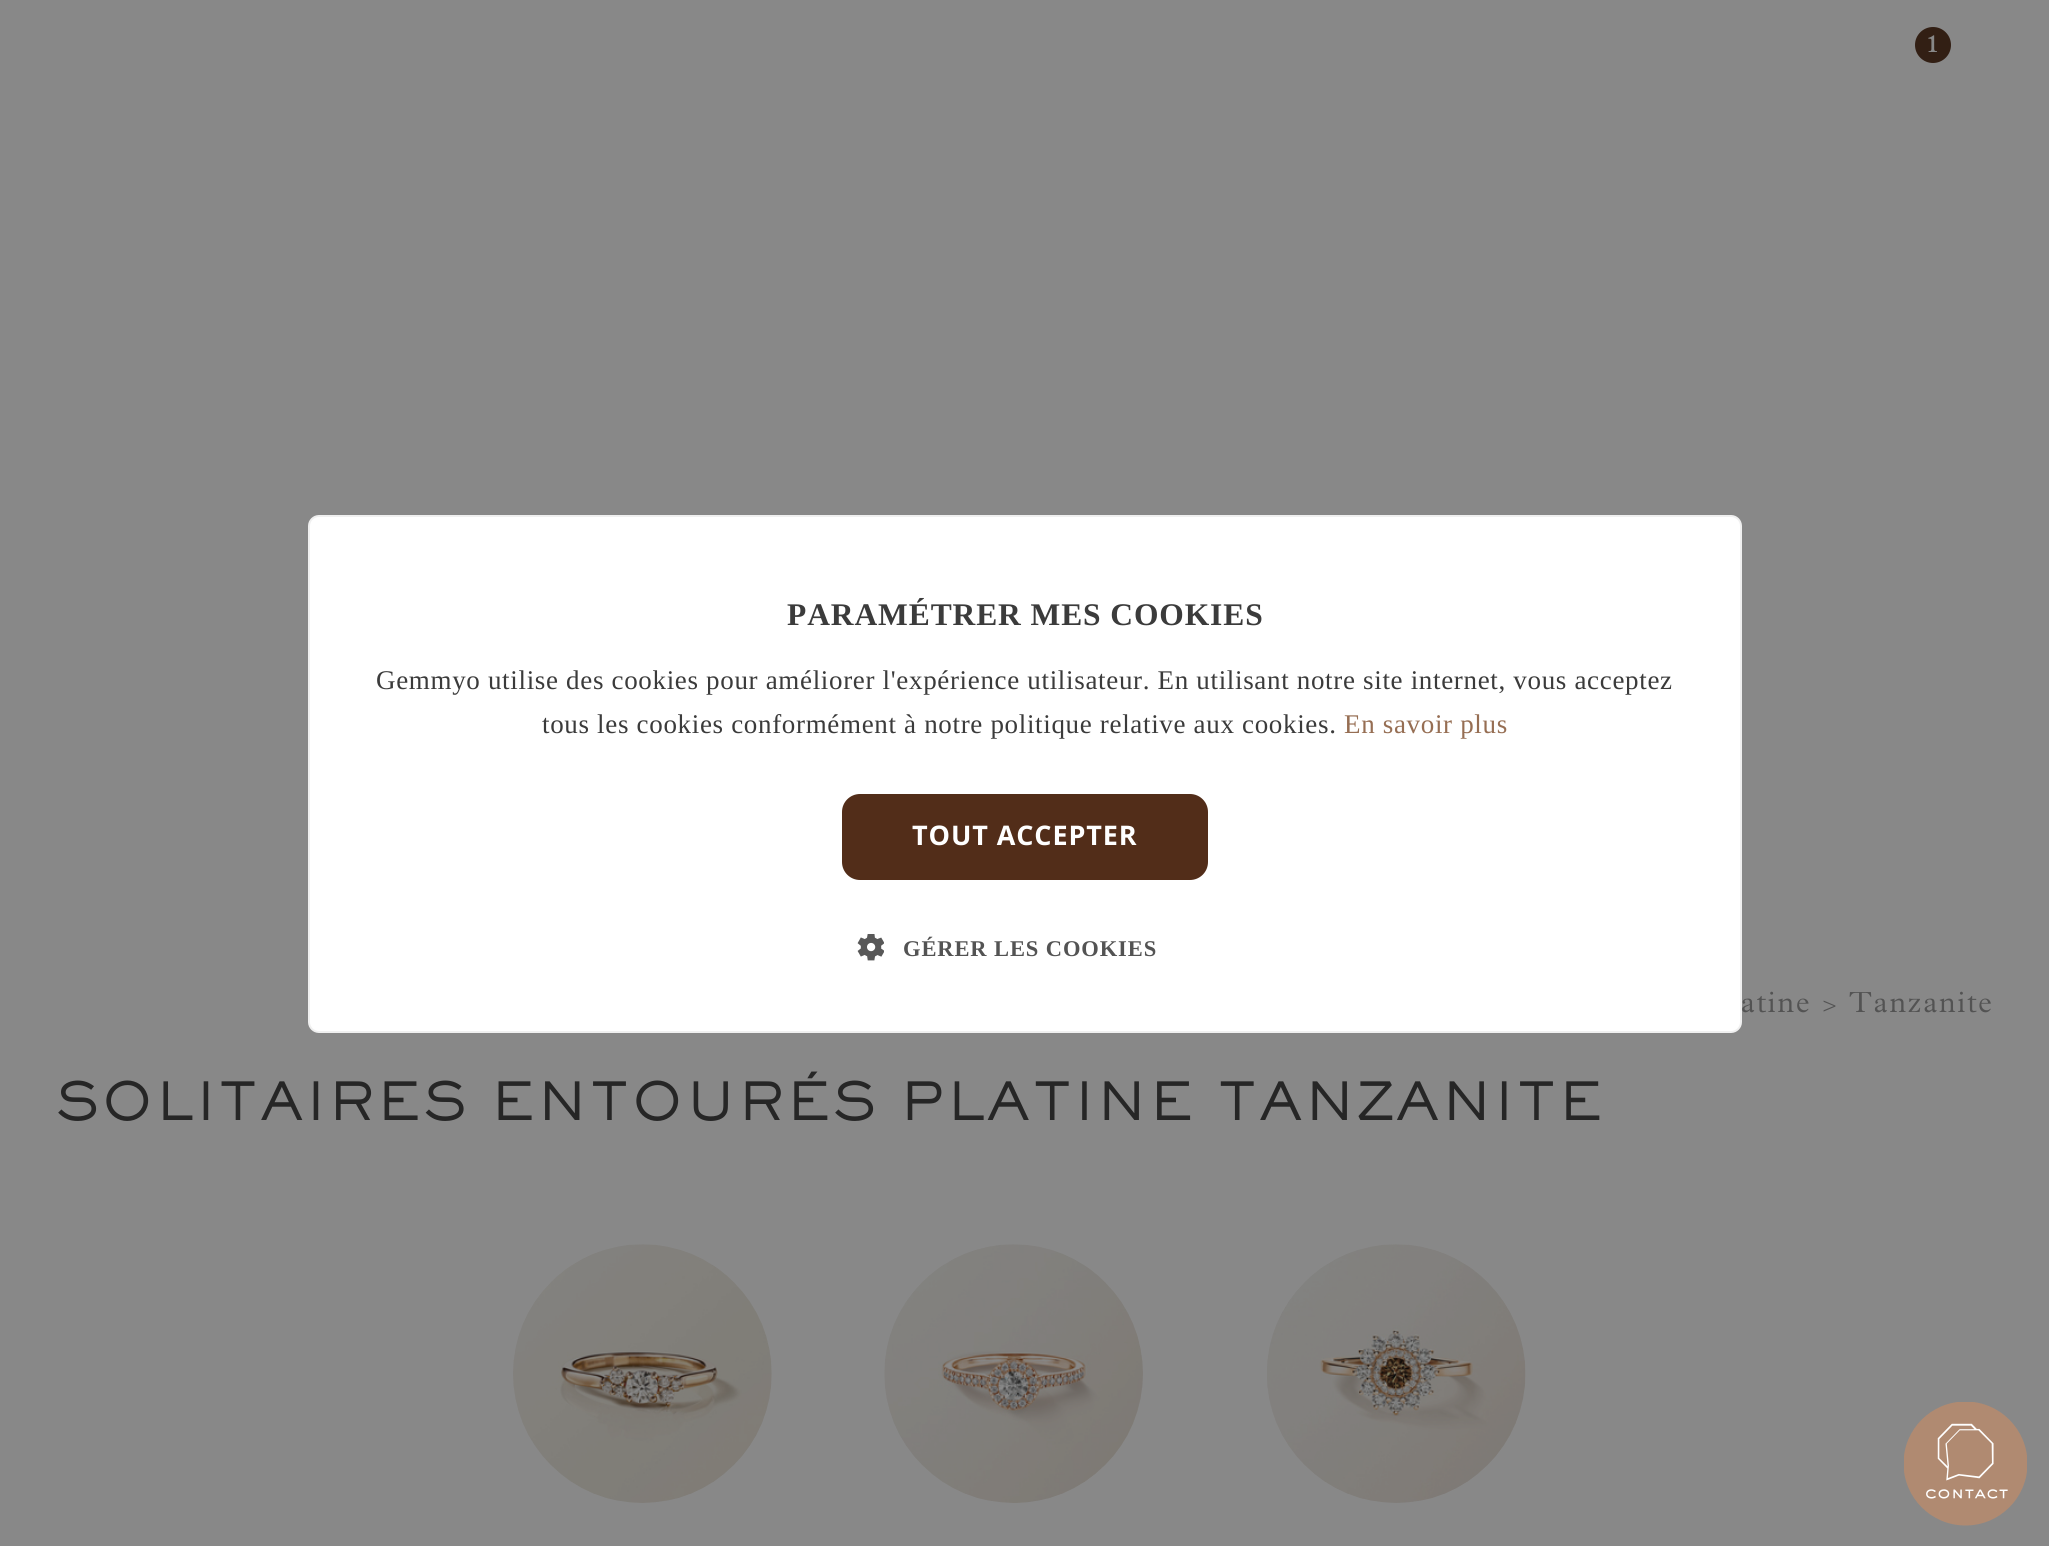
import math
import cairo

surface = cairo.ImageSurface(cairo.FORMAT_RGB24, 2049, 1546)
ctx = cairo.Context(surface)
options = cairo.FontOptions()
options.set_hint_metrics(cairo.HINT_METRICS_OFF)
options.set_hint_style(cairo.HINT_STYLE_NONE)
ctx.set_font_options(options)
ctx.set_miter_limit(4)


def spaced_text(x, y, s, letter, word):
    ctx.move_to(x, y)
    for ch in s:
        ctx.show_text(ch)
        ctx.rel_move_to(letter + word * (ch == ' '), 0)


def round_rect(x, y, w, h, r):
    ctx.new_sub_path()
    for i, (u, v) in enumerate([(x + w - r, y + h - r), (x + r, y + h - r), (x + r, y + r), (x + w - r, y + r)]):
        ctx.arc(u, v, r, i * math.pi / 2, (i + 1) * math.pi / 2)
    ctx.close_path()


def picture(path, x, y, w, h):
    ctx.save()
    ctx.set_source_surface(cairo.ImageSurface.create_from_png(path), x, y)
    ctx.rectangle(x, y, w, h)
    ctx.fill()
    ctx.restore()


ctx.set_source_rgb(0.533, 0.533, 0.533)
ctx.paint()
ctx.set_source_rgb(0.196, 0.122, 0.082)
ctx.arc(1933, 45, 18, 0, 2 * math.pi)
ctx.fill()
ctx.select_font_face("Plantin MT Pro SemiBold")
ctx.set_font_size(25)
ctx.set_source_rgb(0.533, 0.533, 0.533)
ctx.move_to(1926, 52)
ctx.show_text("1")
ctx.set_source_rgb(1, 1, 1)
round_rect(309, 516, 1432, 516, 10)
ctx.fill_preserve()
ctx.set_source_rgb(0.941, 0.941, 0.941)
ctx.stroke()
ctx.select_font_face("Liberation Serif", cairo.FONT_SLANT_NORMAL, cairo.FONT_WEIGHT_BOLD)
ctx.set_font_size(31.5)
ctx.set_source_rgb(0.231, 0.231, 0.231)
spaced_text(787, 625, "PARAMÉTRER MES COOKIES", 0.9, 0)
ctx.select_font_face("Liberation Serif")
ctx.set_font_size(27)
spaced_text(376, 689, "Gemmyo utilise des cookies pour améliorer l'expérience utilisateur. En utilisant notre site internet, vous acceptez", 0.67, 0)
spaced_text(542, 733, "tous les cookies conformément à notre politique relative aux cookies.", 0.67, 0)
ctx.set_source_rgb(0.588, 0.431, 0.325)
spaced_text(1344, 733, "En savoir plus", 0.67, 0)
ctx.set_source_rgb(0.322, 0.176, 0.098)
round_rect(842, 794, 366, 86, 18)
ctx.fill()
ctx.select_font_face("Open Sans", cairo.FONT_SLANT_NORMAL, cairo.FONT_WEIGHT_BOLD)
ctx.set_source_rgb(1, 1, 1)
spaced_text(912, 845, "TOUT ACCEPTER", 0.9, 0)
picture("img1.png", 857, 934, 27, 27)
ctx.select_font_face("Liberation Serif", cairo.FONT_SLANT_NORMAL, cairo.FONT_WEIGHT_BOLD)
ctx.set_font_size(22.5)
ctx.set_source_rgb(0.325, 0.325, 0.325)
spaced_text(903, 956, "GÉRER LES COOKIES", 0.9, 0)
ctx.select_font_face("Plantin MT Pro Light")
ctx.set_font_size(29.25)
spaced_text(1741, 1012, "atine", 2, 0)
ctx.set_font_size(22.5)
spaced_text(1822, 1012, ">", 2, 0)
ctx.set_font_size(29.25)
spaced_text(1849, 1012, "Tanzanite", 2, 0)
ctx.select_font_face("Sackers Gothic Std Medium")
ctx.set_font_size(51.75)
ctx.set_source_rgb(0.149, 0.149, 0.149)
spaced_text(56, 1120, "SOLITAIRES ENTOURÉS PLATINE TANZANITE", 2.5, 0)
picture("img2.png", 513, 1244, 259, 259)
picture("img3.png", 884, 1244, 259, 259)
picture("img4.png", 1267, 1244, 259, 259)
picture("img5.png", 1904, 1402, 123, 124)
surface.write_to_png("page.png")
